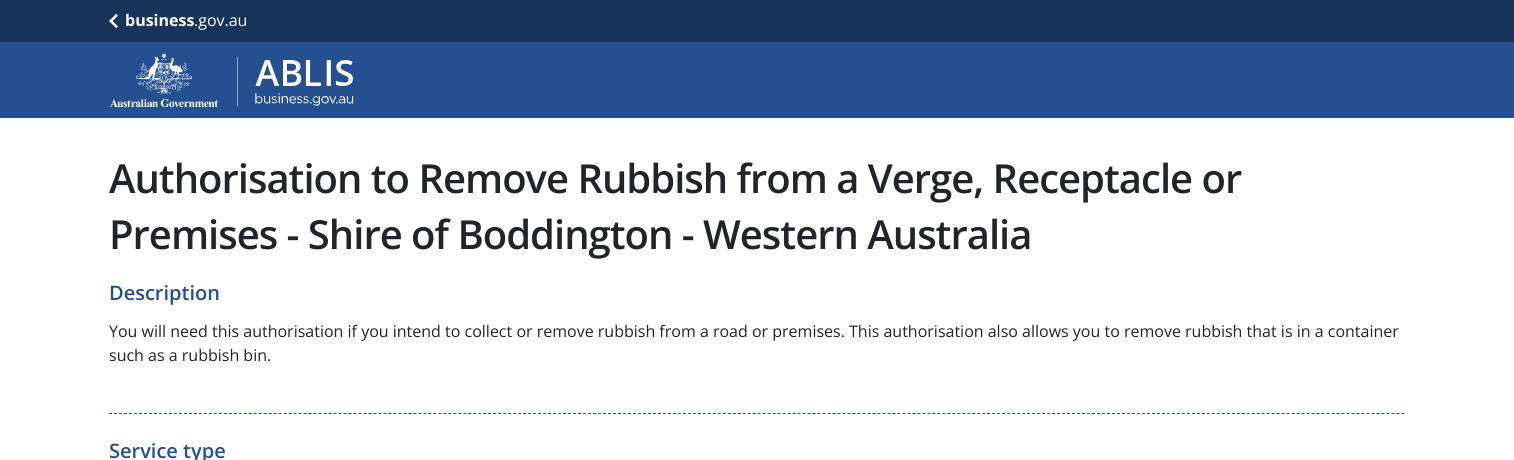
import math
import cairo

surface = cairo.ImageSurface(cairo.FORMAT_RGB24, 1514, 460)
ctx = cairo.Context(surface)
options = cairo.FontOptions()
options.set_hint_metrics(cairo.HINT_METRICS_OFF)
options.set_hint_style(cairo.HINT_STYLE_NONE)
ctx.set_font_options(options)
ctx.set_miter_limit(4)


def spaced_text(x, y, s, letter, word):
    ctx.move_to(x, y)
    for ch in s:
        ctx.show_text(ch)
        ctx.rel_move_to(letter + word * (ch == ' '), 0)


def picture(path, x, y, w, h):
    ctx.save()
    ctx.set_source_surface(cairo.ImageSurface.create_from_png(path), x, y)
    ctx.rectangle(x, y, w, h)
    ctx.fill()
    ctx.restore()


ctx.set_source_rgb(1, 1, 1)
ctx.paint()
ctx.set_source_rgb(0.094, 0.2, 0.361)
ctx.rectangle(0, 0, 1514, 42)
ctx.fill()
picture("img1.png", 109, 13, 9, 16)
ctx.select_font_face("Open Sans", cairo.FONT_SLANT_NORMAL, cairo.FONT_WEIGHT_BOLD)
ctx.set_font_size(16)
ctx.set_source_rgb(1, 1, 1)
ctx.move_to(125, 26)
ctx.show_text("business")
ctx.select_font_face("Open Sans")
ctx.move_to(194, 26)
ctx.show_text(".gov.au")
ctx.set_source_rgb(0.145, 0.31, 0.565)
ctx.rectangle(0, 42, 1514, 76)
ctx.fill()
picture("img2.png", 109, 53, 245, 55)
ctx.select_font_face("Open Sans SemiBold")
ctx.set_font_size(40)
ctx.set_source_rgb(0.129, 0.145, 0.161)
spaced_text(109, 193, "Authorisation to Remove Rubbish from a Verge, Receptacle or", -1, 0)
spaced_text(109, 249, "Premises - Shire of Boddington - Western Australia", -1, 0)
ctx.new_path()
ctx.move_to(109, 413.5)
ctx.line_to(1405, 413.5)
ctx.set_source_rgb(0.145, 0.31, 0.565)
ctx.set_line_width(1)
ctx.set_dash([3, 1.99])
ctx.stroke()
ctx.set_font_size(20)
ctx.move_to(109, 300)
ctx.show_text("Description")
ctx.select_font_face("Open Sans")
ctx.set_font_size(16)
ctx.set_source_rgb(0.129, 0.145, 0.161)
ctx.move_to(109, 337)
ctx.show_text("You will need this authorisation if you intend to collect or remove rubbish from a road or premises. This authorisation also allows you to remove rubbish that is in a container")
ctx.move_to(109, 361)
ctx.show_text("such as a rubbish bin.")
ctx.select_font_face("Open Sans SemiBold")
ctx.set_font_size(20)
ctx.set_source_rgb(0.145, 0.31, 0.565)
ctx.move_to(109, 458)
ctx.show_text("Service type")
surface.write_to_png("page.png")
